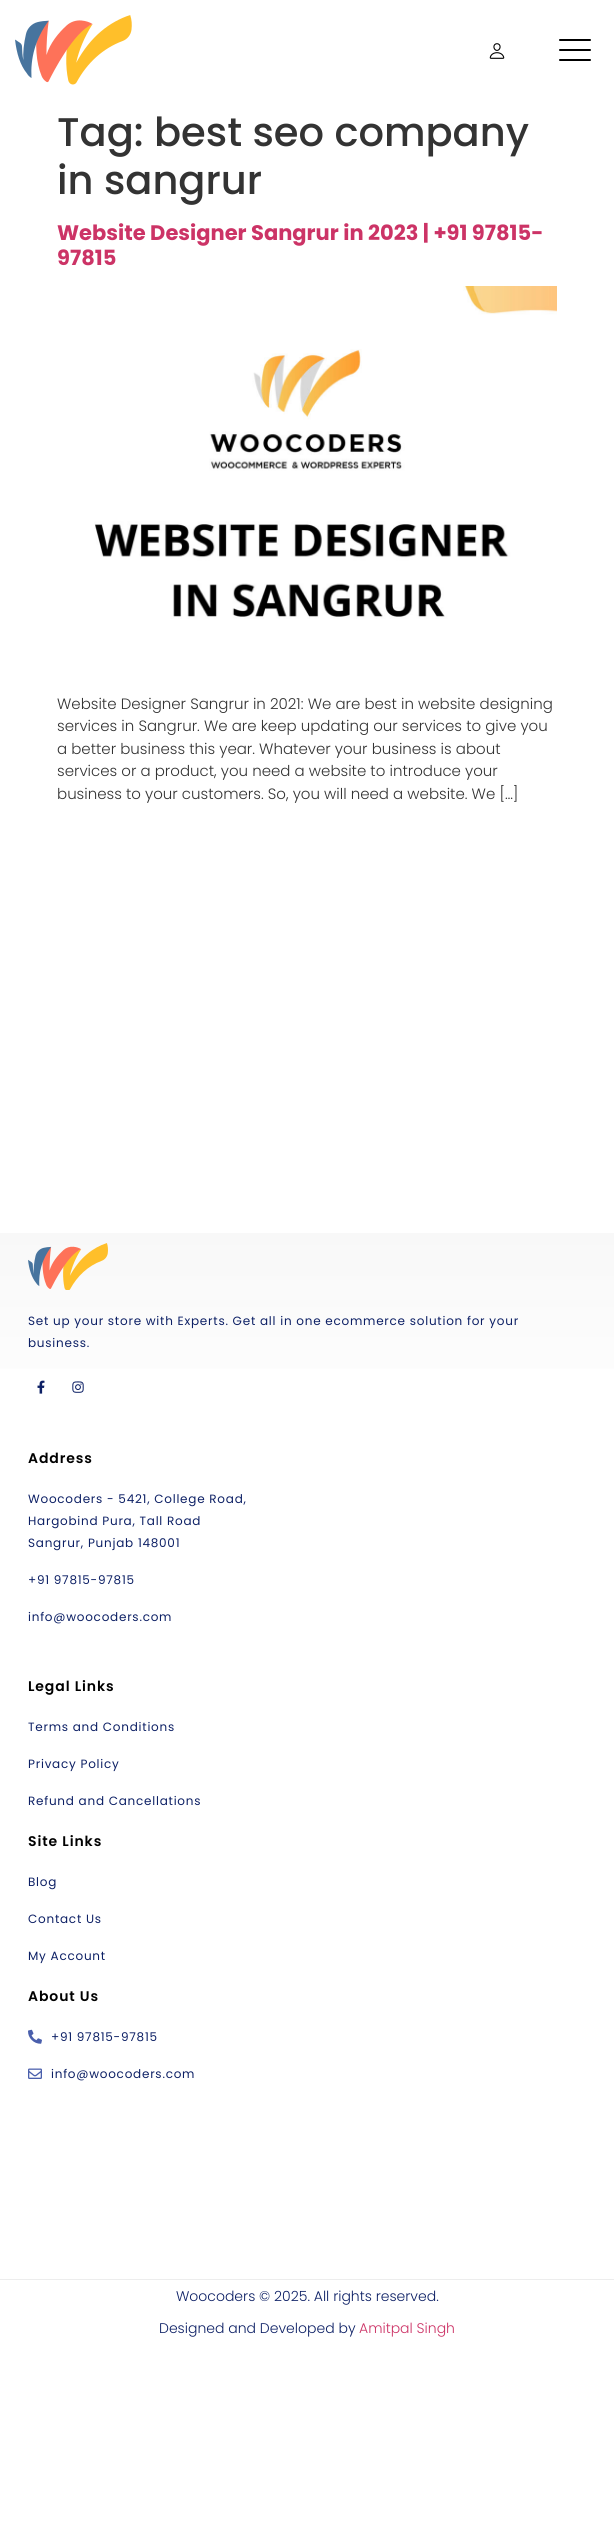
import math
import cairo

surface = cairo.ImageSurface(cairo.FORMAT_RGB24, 614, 2529)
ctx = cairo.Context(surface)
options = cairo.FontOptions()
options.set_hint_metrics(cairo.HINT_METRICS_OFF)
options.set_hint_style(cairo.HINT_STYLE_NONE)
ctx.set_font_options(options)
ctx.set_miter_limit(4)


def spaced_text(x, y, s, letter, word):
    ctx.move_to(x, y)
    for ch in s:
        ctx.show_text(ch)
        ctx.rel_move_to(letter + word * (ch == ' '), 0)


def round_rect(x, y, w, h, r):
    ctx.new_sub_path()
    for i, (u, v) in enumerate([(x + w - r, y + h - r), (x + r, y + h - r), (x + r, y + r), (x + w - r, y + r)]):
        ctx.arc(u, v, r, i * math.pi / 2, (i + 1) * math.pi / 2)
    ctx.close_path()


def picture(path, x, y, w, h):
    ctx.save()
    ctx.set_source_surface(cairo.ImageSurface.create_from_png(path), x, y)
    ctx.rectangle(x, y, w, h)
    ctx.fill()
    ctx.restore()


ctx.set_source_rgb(1, 1, 1)
ctx.paint()
picture("img1.png", 15, 15, 117, 70)
picture("img2.png", 489, 43, 16, 16)
ctx.set_source_rgb(0, 0, 0)
round_rect(559, 49, 32, 2, 1)
ctx.fill()
round_rect(559, 39, 32, 2, 1)
ctx.fill()
round_rect(559, 59, 32, 2, 1)
ctx.fill()
ctx.select_font_face("Poppins Medium")
ctx.set_font_size(40)
ctx.set_source_rgb(0.2, 0.2, 0.2)
ctx.move_to(57, 146)
ctx.show_text("Tag: best seo company")
ctx.move_to(57, 194)
ctx.show_text("in sangrur")
ctx.select_font_face("Poppins", cairo.FONT_SLANT_NORMAL, cairo.FONT_WEIGHT_BOLD)
ctx.set_font_size(21)
ctx.set_source_rgb(0.8, 0.2, 0.4)
ctx.move_to(57, 240)
ctx.show_text("Website Designer Sangrur in 2023 | +91 97815-")
ctx.move_to(57, 265)
ctx.show_text("97815")
picture("img3.png", 94, 286, 463, 333)
ctx.select_font_face("Poppins Light")
ctx.set_font_size(15)
ctx.set_source_rgb(0.2, 0.2, 0.2)
ctx.move_to(57, 709)
ctx.show_text("Website Designer Sangrur in 2021: We are best in website designing")
ctx.move_to(57, 731)
ctx.show_text("services in Sangrur. We are keep updating our services to give you")
ctx.move_to(57, 754)
ctx.show_text("a better business this year. Whatever your business is about")
ctx.move_to(57, 776)
ctx.show_text("services or a product, you need a website to introduce your")
ctx.move_to(57, 799)
ctx.show_text("business to your customers. So, you will need a website. We […]")
gradient = cairo.LinearGradient(307, 1233, 307, 2156)
gradient.add_color_stop_rgba(0, 0.973, 0.973, 0.973, 1)
gradient.add_color_stop_rgba(0.23, 1, 1, 1, 1)
ctx.set_source(gradient)
ctx.rectangle(0, 1233, 614, 136)
ctx.fill()
picture("img4.png", 28, 1243, 80, 47)
ctx.select_font_face("Poppins")
ctx.set_font_size(12)
ctx.set_source_rgb(0.051, 0.125, 0.396)
spaced_text(28, 1325, "Set up your store with Experts. Get all in one ecommerce solution for your", 0.75, 0)
spaced_text(28, 1347, "business.", 0.75, 0)
picture("img5.png", 37, 1380, 8, 14)
picture("img6.png", 72, 1381, 12, 12)
ctx.select_font_face("Poppins SemiBold")
ctx.set_font_size(14)
ctx.set_source_rgb(0, 0, 0)
spaced_text(28, 1463, "Address", 0.9, 0)
ctx.select_font_face("Poppins")
ctx.set_font_size(12)
ctx.set_source_rgb(0.051, 0.125, 0.396)
spaced_text(28, 1503, "Woocoders - 5421, College Road,", 0.75, 0)
spaced_text(28, 1525, "Hargobind Pura, Tall Road", 0.75, 0)
spaced_text(28, 1547, "Sangrur, Punjab 148001", 0.75, 0)
spaced_text(28, 1584, "+91 97815-97815", 0.75, 0)
spaced_text(28, 1621, "info@woocoders.com", 0.75, 0)
ctx.select_font_face("Poppins SemiBold")
ctx.set_font_size(14)
ctx.set_source_rgb(0, 0, 0)
spaced_text(28, 1691, "Legal Links", 0.9, 0)
ctx.select_font_face("Poppins")
ctx.set_font_size(12)
ctx.set_source_rgb(0.051, 0.125, 0.396)
spaced_text(28, 1731, "Terms and Conditions", 0.75, 0)
spaced_text(28, 1768, "Privacy Policy", 0.75, 0)
spaced_text(28, 1805, "Refund and Cancellations", 0.75, 0)
ctx.select_font_face("Poppins SemiBold")
ctx.set_font_size(14)
ctx.set_source_rgb(0, 0, 0)
spaced_text(28, 1846, "Site Links", 0.9, 0)
ctx.select_font_face("Poppins")
ctx.set_font_size(12)
ctx.set_source_rgb(0.051, 0.125, 0.396)
spaced_text(28, 1886, "Blog", 0.75, 0)
spaced_text(28, 1923, "Contact Us", 0.75, 0)
spaced_text(28, 1960, "My Account", 0.75, 0)
ctx.select_font_face("Poppins SemiBold")
ctx.set_font_size(14)
ctx.set_source_rgb(0, 0, 0)
spaced_text(28, 2001, "About Us", 0.9, 0)
picture("img7.png", 28, 2029, 14, 15)
ctx.select_font_face("Poppins")
ctx.set_font_size(12)
ctx.set_source_rgb(0.051, 0.125, 0.396)
spaced_text(51, 2041, "+91 97815-97815", 0.75, 0)
picture("img8.png", 28, 2068, 14, 11)
spaced_text(51, 2078, "info@woocoders.com", 0.75, 0)
ctx.set_source_rgb(0.929, 0.929, 0.929)
ctx.rectangle(0, 2279, 614, 1)
ctx.fill()
ctx.select_font_face("Poppins Light")
ctx.set_font_size(14)
ctx.set_source_rgb(0.051, 0.125, 0.396)
ctx.move_to(176, 2301)
ctx.show_text("Woocoders © 2025. All rights reserved.")
ctx.move_to(159, 2333)
ctx.show_text("Designed and Developed by")
ctx.set_source_rgb(0.8, 0.2, 0.4)
ctx.move_to(359, 2333)
ctx.show_text("Amitpal Singh")
surface.write_to_png("page.png")
